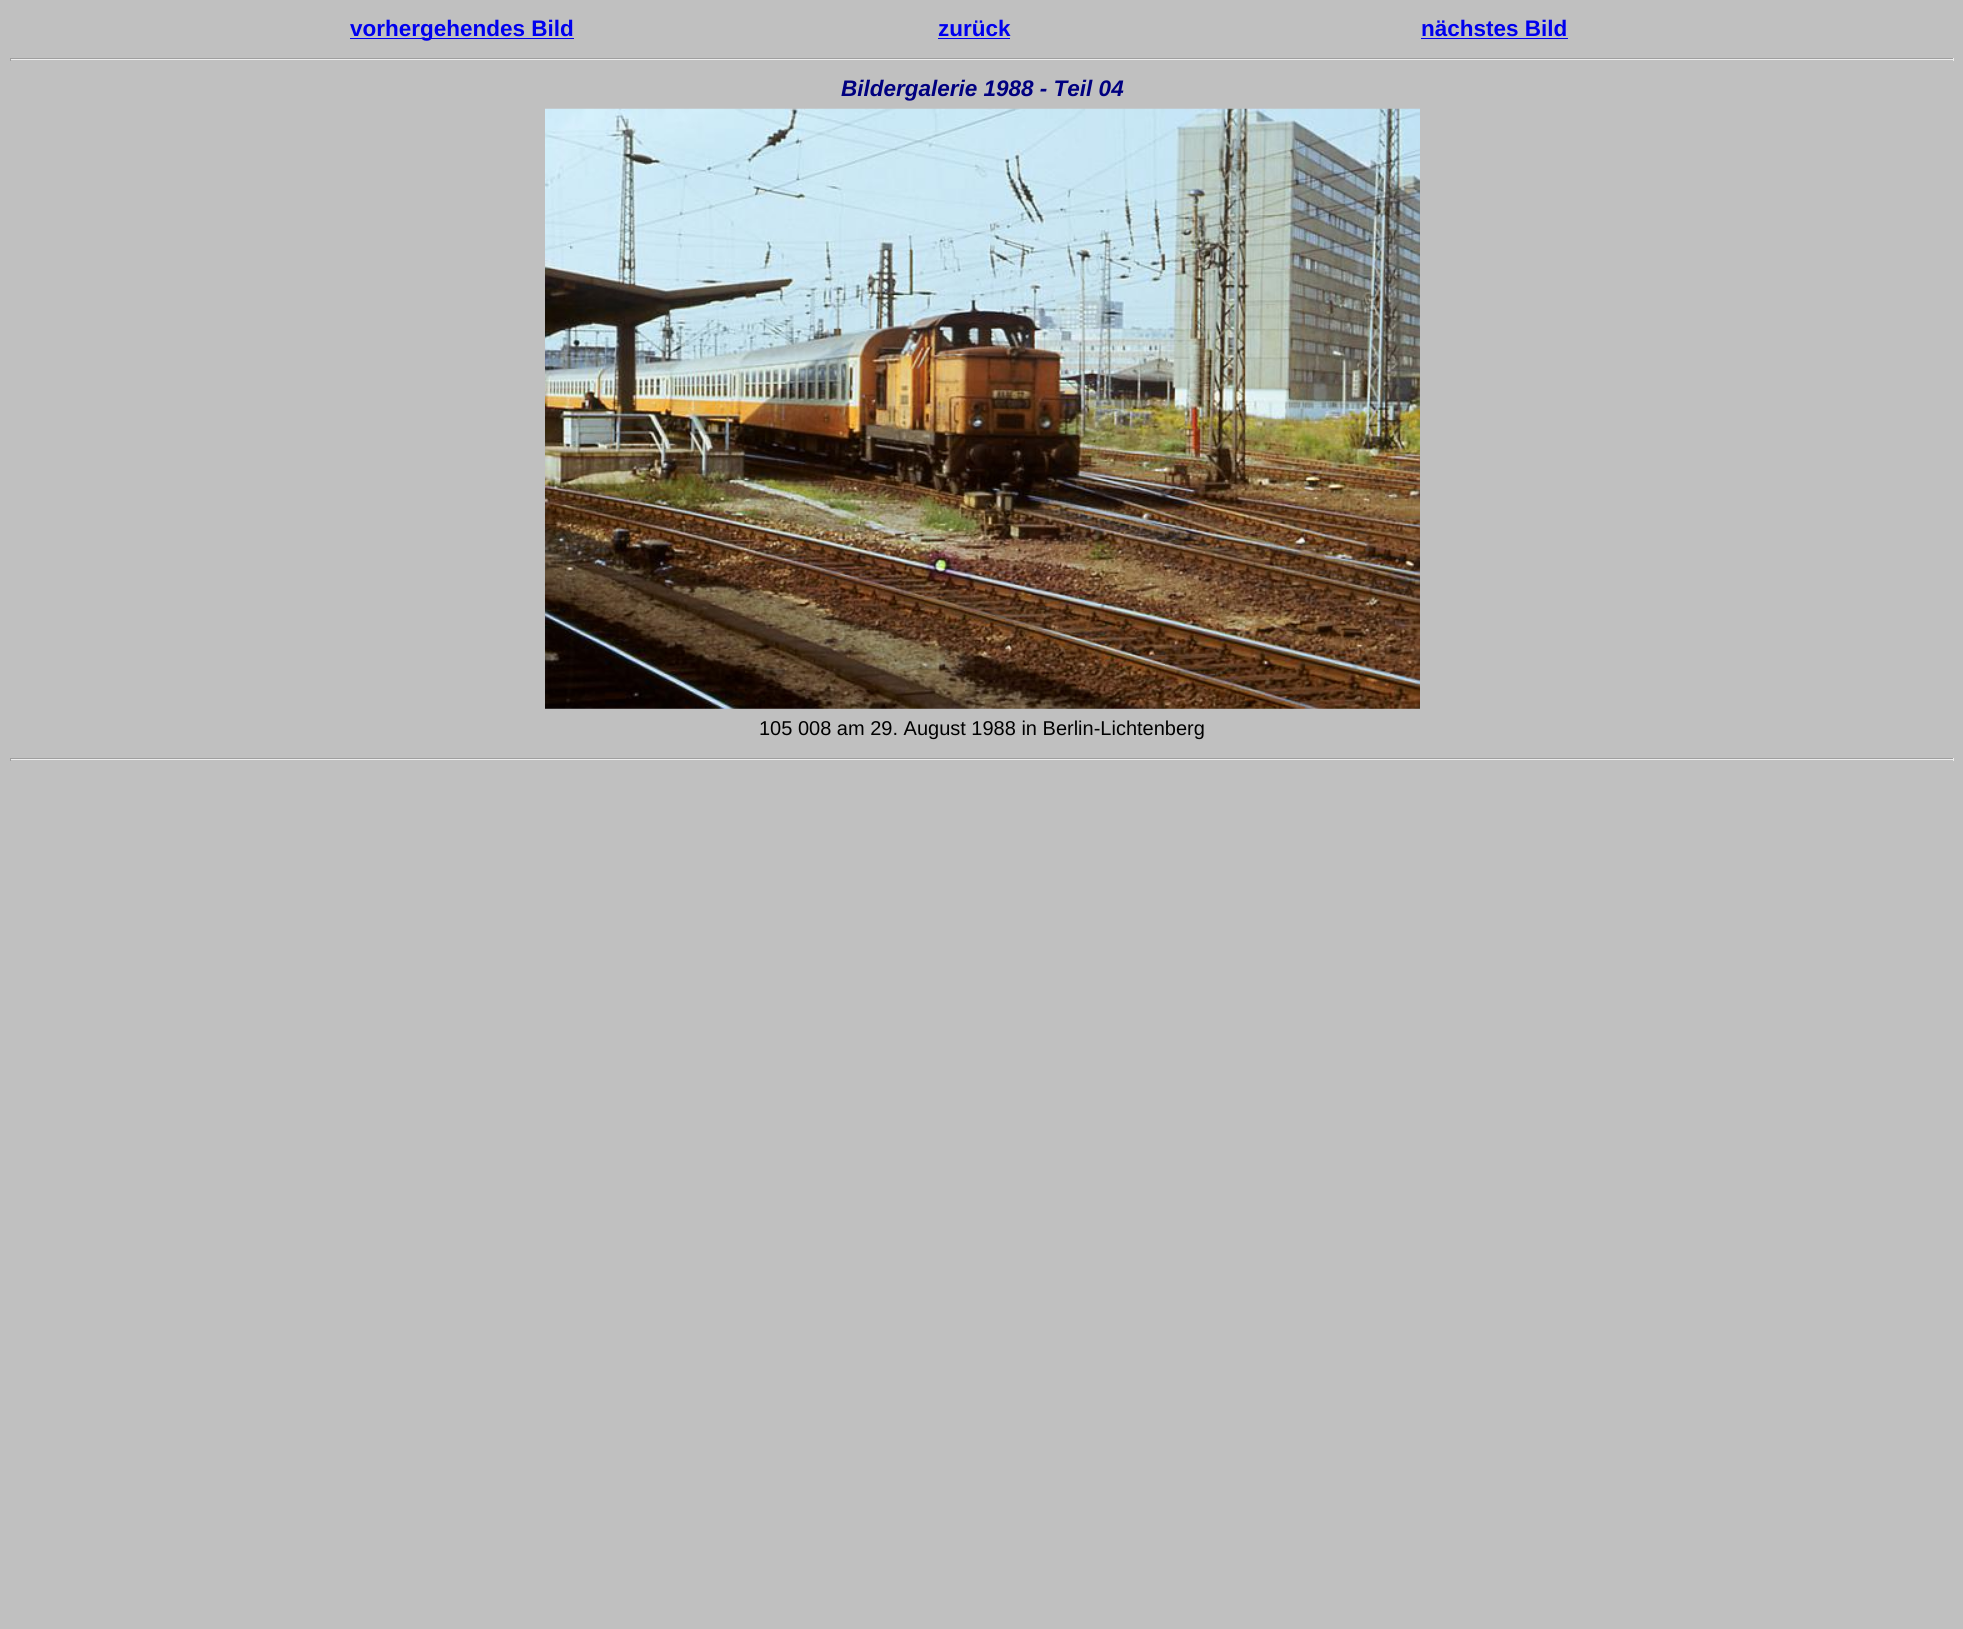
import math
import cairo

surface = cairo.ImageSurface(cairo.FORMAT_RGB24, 1963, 1629)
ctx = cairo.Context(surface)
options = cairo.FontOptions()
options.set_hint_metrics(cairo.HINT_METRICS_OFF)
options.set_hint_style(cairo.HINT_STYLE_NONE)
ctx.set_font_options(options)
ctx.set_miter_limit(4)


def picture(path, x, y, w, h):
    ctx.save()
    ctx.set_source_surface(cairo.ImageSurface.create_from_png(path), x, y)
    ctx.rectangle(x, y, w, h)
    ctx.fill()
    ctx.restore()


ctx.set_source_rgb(0.753, 0.753, 0.753)
ctx.paint()
ctx.set_source_rgb(0, 0, 0.933)
ctx.rectangle(350, 38, 224, 1)
ctx.fill()
ctx.select_font_face("Liberation Sans", cairo.FONT_SLANT_NORMAL, cairo.FONT_WEIGHT_BOLD)
ctx.set_font_size(22.5)
ctx.move_to(350, 36)
ctx.show_text("vorhergehendes Bild")
ctx.move_to(938, 36)
ctx.show_text("zurück")
ctx.rectangle(938, 38, 72, 1)
ctx.fill()
ctx.move_to(1421, 36)
ctx.show_text("nächstes Bild")
ctx.rectangle(1421, 38, 147, 1)
ctx.fill()
ctx.set_source_rgb(0.624, 0.624, 0.624)
ctx.rectangle(10, 58, 1944, 1)
ctx.fill()
ctx.set_source_rgb(0.933, 0.933, 0.933)
ctx.rectangle(1953, 58, 1, 3)
ctx.fill()
ctx.rectangle(10, 59, 1944, 1)
ctx.fill()
ctx.set_source_rgb(0.624, 0.624, 0.624)
ctx.rectangle(10, 58, 1, 3)
ctx.fill()
ctx.select_font_face("Liberation Sans", cairo.FONT_SLANT_ITALIC, cairo.FONT_WEIGHT_BOLD)
ctx.set_source_rgb(0, 0, 0.502)
ctx.move_to(841, 96)
ctx.show_text("Bildergalerie 1988 - Teil 04")
picture("img1.png", 545, 108, 875, 601)
ctx.select_font_face("Liberation Sans")
ctx.set_font_size(20)
ctx.set_source_rgb(0, 0, 0)
ctx.move_to(759, 735)
ctx.show_text("105 008 am 29. August 1988 in Berlin-Lichtenberg")
ctx.set_source_rgb(0.624, 0.624, 0.624)
ctx.rectangle(10, 758, 1944, 1)
ctx.fill()
ctx.set_source_rgb(0.933, 0.933, 0.933)
ctx.rectangle(1953, 758, 1, 3)
ctx.fill()
ctx.rectangle(10, 759, 1944, 1)
ctx.fill()
ctx.set_source_rgb(0.624, 0.624, 0.624)
ctx.rectangle(10, 758, 1, 3)
ctx.fill()
surface.write_to_png("page.png")
